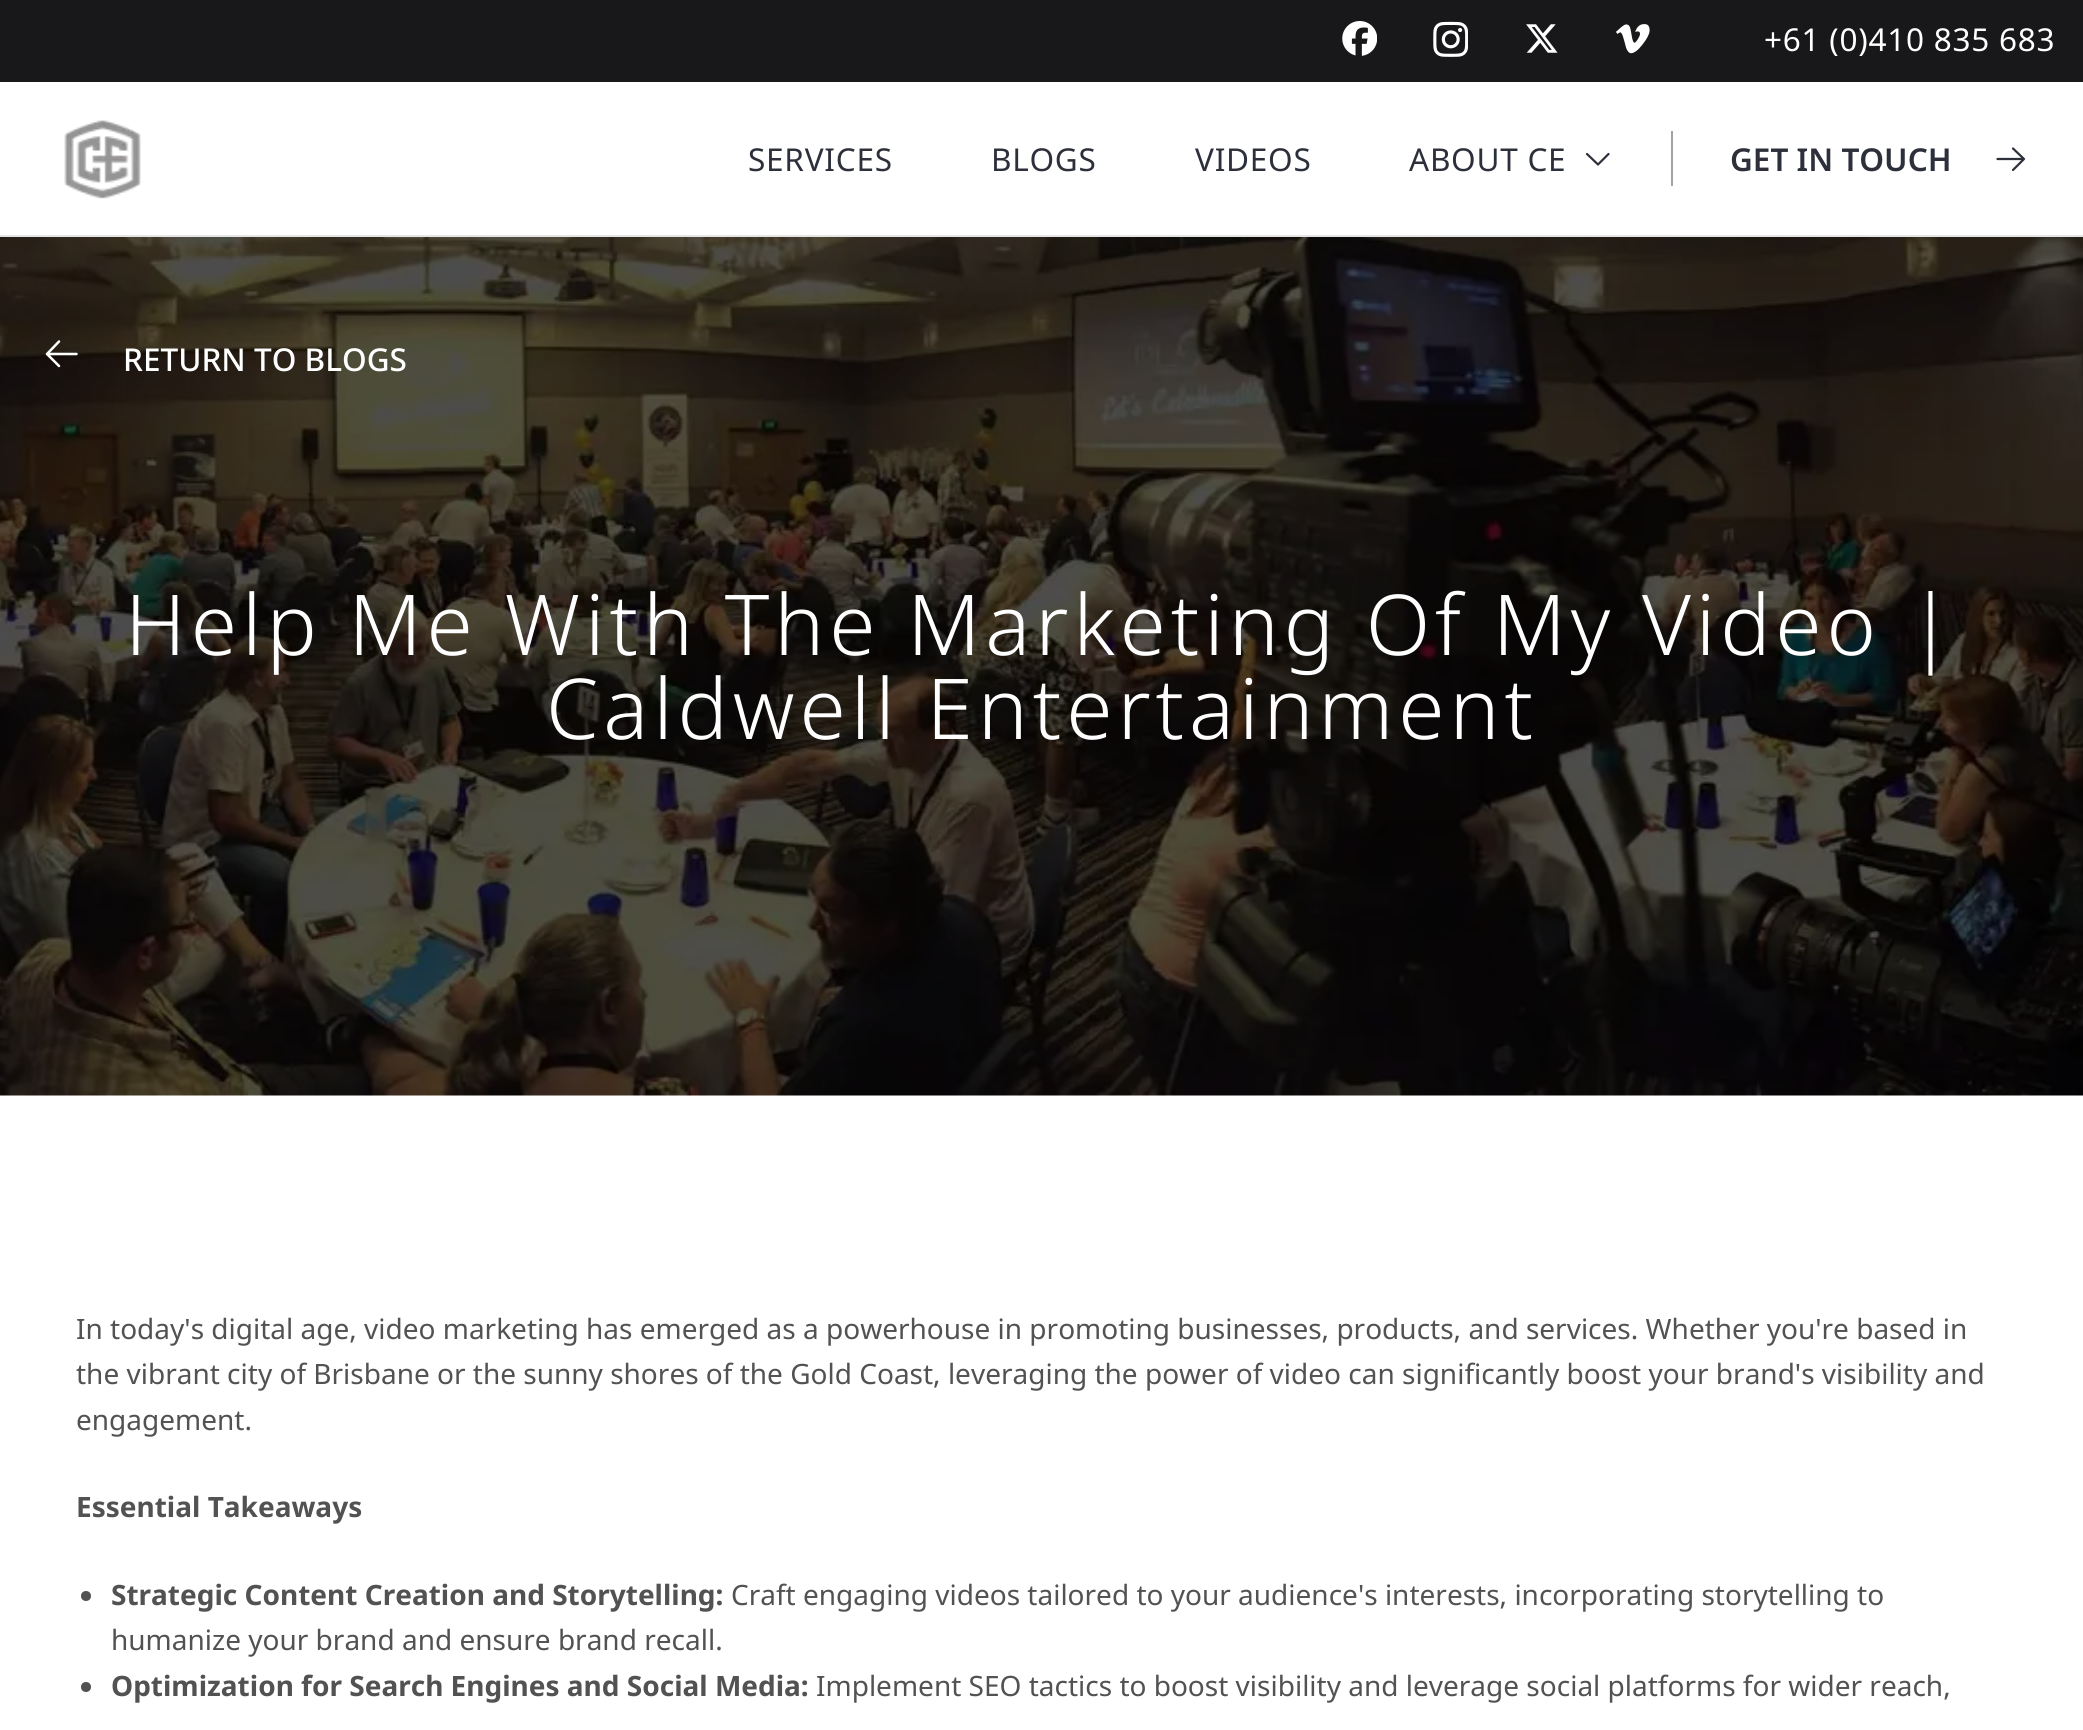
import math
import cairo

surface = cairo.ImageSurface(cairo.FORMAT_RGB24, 2083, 1730)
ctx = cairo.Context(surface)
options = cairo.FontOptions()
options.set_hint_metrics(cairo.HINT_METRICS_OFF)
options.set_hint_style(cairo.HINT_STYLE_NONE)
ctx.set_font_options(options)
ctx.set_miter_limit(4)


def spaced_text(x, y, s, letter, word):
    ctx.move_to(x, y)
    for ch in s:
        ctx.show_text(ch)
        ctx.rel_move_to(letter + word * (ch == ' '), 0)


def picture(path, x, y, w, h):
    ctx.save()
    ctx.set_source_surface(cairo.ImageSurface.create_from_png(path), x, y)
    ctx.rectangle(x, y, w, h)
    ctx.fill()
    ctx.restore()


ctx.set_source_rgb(1, 1, 1)
ctx.paint()
ctx.set_source_rgb(0.094, 0.094, 0.106)
ctx.rectangle(0, 0, 2083, 82)
ctx.fill()
picture("img1.png", 1342, 21, 35, 35)
picture("img2.png", 1433, 21, 35, 36)
picture("img3.png", 1526, 24, 32, 29)
picture("img4.png", 1616, 24, 34, 30)
ctx.select_font_face("Noto Sans")
ctx.set_font_size(31.5)
ctx.set_source_rgb(1, 1, 1)
spaced_text(1764, 51, "+61 (0)410 835 683", 0.75, 0)
ctx.set_source_rgb(0.898, 0.898, 0.898)
ctx.rectangle(0, 235, 2083, 2)
ctx.fill()
picture("img5.png", 64, 120, 77, 79)
ctx.set_source_rgb(0.176, 0.188, 0.231)
spaced_text(748, 171, "SERVICES", 0.75, 0)
spaced_text(991, 171, "BLOGS", 0.75, 0)
spaced_text(1195, 171, "VIDEOS", 0.75, 0)
spaced_text(1409, 171, "ABOUT CE", 0.75, 0)
ctx.new_path()
ctx.move_to(1608.5, 154)
ctx.line_to(1598, 164.5)
ctx.line_to(1587, 154)
ctx.set_line_width(2.2)
ctx.set_line_cap(cairo.LINE_CAP_ROUND)
ctx.set_line_join(cairo.LINE_JOIN_ROUND)
ctx.stroke()
ctx.set_source_rgb(0.639, 0.639, 0.639)
ctx.rectangle(1671, 131, 2, 55)
ctx.fill()
ctx.select_font_face("Noto Sans SemiBold")
ctx.set_source_rgb(0.176, 0.188, 0.231)
ctx.move_to(1730, 171)
ctx.show_text("GET IN TOUCH")
ctx.new_path()
ctx.move_to(2013, 148.5)
ctx.line_to(2024, 159)
ctx.move_to(2024, 159)
ctx.line_to(2013, 170)
ctx.move_to(2024, 159)
ctx.line_to(1997.5, 159)
ctx.stroke()
picture("img6.png", 0, 237, 2083, 859)
ctx.new_path()
ctx.move_to(59, 366)
ctx.line_to(47, 354)
ctx.move_to(47, 354)
ctx.line_to(59, 341.5)
ctx.move_to(47, 354)
ctx.line_to(76.5, 354)
ctx.set_source_rgb(1, 1, 1)
ctx.set_line_width(2.5)
ctx.stroke()
ctx.select_font_face("Noto Sans Medium")
ctx.move_to(123, 371)
ctx.show_text("RETURN TO BLOGS")
ctx.select_font_face("Noto Sans Light")
ctx.set_font_size(84)
spaced_text(125, 655, "Help Me With The Marketing Of My Video |", 4.9, 0)
spaced_text(546, 739, "Caldwell Entertainment", 4.9, 0)
ctx.select_font_face("Noto Sans")
ctx.set_font_size(28)
ctx.set_source_rgb(0.322, 0.322, 0.322)
ctx.move_to(76, 1339)
ctx.show_text("In today's digital age, video marketing has emerged as a powerhouse in promoting businesses, products, and services. Whether you're based in")
ctx.move_to(76, 1384)
ctx.show_text("the vibrant city of Brisbane or the sunny shores of the Gold Coast, leveraging the power of video can significantly boost your brand's visibility and")
ctx.move_to(76, 1430)
ctx.show_text("engagement.")
ctx.select_font_face("Noto Sans", cairo.FONT_SLANT_NORMAL, cairo.FONT_WEIGHT_BOLD)
ctx.move_to(76, 1517)
ctx.show_text("Essential Takeaways")
ctx.new_path()
ctx.arc(86, 1596, 5, 0, 2 * math.pi)
ctx.fill()
ctx.move_to(111, 1605)
ctx.show_text("Strategic Content Creation and Storytelling:")
ctx.select_font_face("Noto Sans")
ctx.move_to(731, 1605)
ctx.show_text("Craft engaging videos tailored to your audience's interests, incorporating storytelling to")
ctx.move_to(111, 1650)
ctx.show_text("humanize your brand and ensure brand recall.")
ctx.new_path()
ctx.arc(86, 1687, 5, 0, 2 * math.pi)
ctx.fill()
ctx.select_font_face("Noto Sans", cairo.FONT_SLANT_NORMAL, cairo.FONT_WEIGHT_BOLD)
ctx.move_to(111, 1696)
ctx.show_text("Optimization for Search Engines and Social Media:")
ctx.select_font_face("Noto Sans")
ctx.move_to(816, 1696)
ctx.show_text("Implement SEO tactics to boost visibility and leverage social platforms for wider reach,")
surface.write_to_png("page.png")
